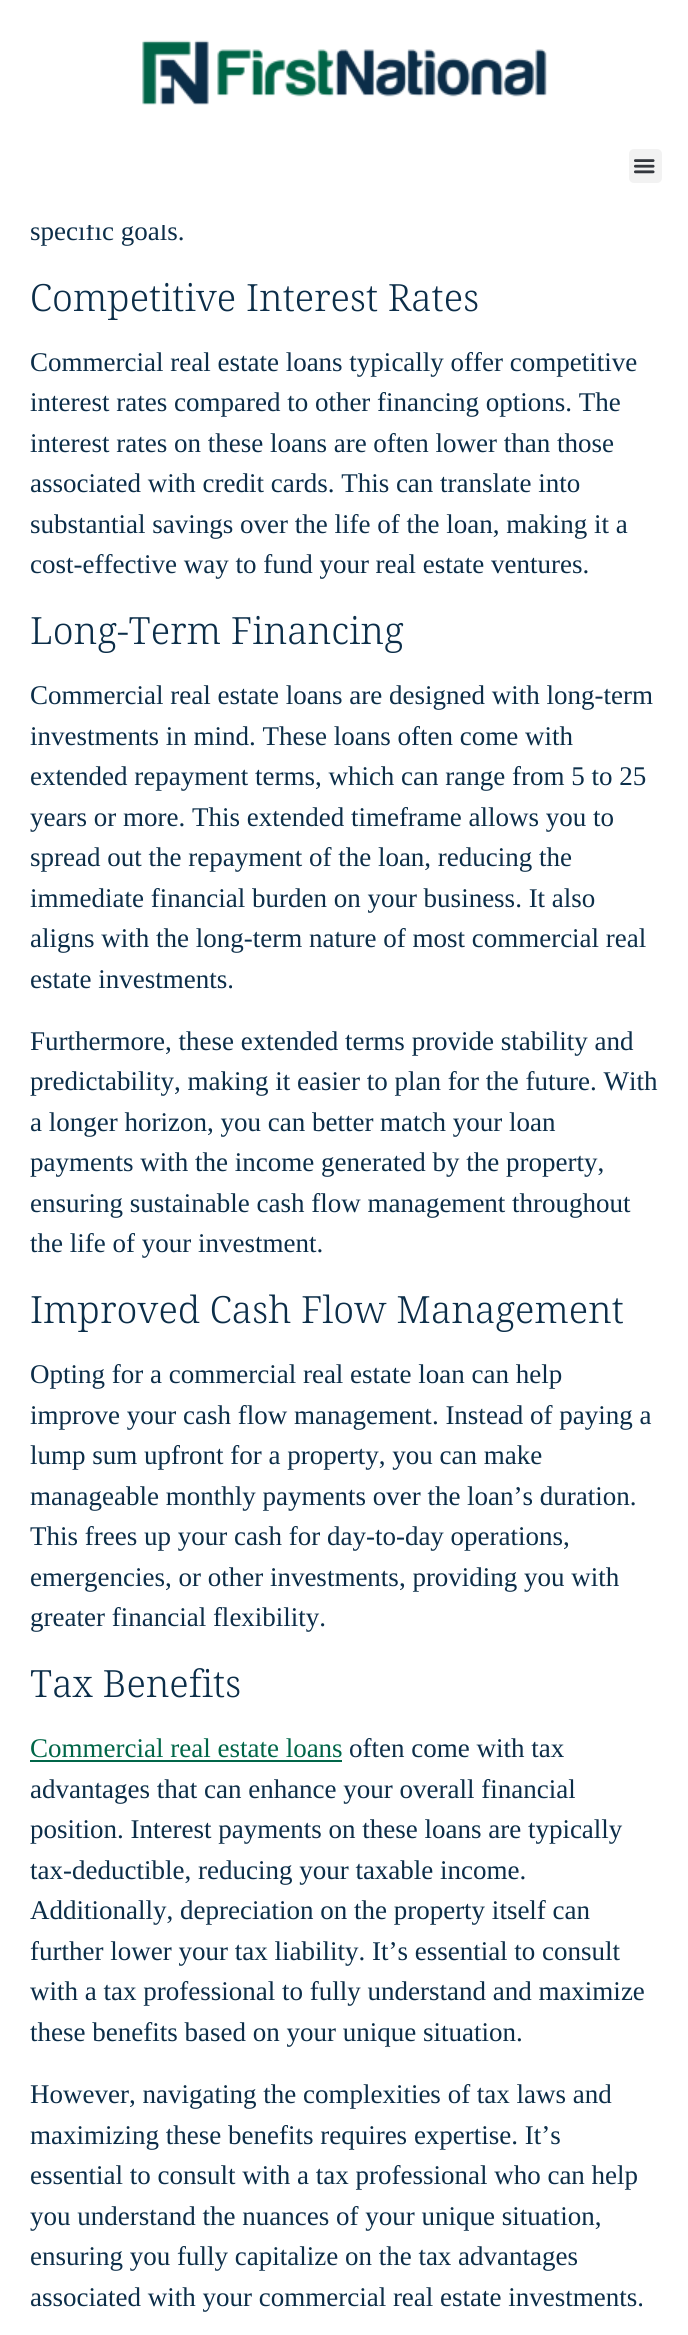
import math
import cairo

surface = cairo.ImageSurface(cairo.FORMAT_RGB24, 688, 2335)
ctx = cairo.Context(surface)
options = cairo.FontOptions()
options.set_hint_metrics(cairo.HINT_METRICS_OFF)
options.set_hint_style(cairo.HINT_STYLE_NONE)
ctx.set_font_options(options)
ctx.set_miter_limit(4)


def round_rect(x, y, w, h, r):
    ctx.new_sub_path()
    for i, (u, v) in enumerate([(x + w - r, y + h - r), (x + r, y + h - r), (x + r, y + r), (x + w - r, y + r)]):
        ctx.arc(u, v, r, i * math.pi / 2, (i + 1) * math.pi / 2)
    ctx.close_path()


def picture(path, x, y, w, h):
    ctx.save()
    ctx.set_source_surface(cairo.ImageSurface.create_from_png(path), x, y)
    ctx.rectangle(x, y, w, h)
    ctx.fill()
    ctx.restore()


ctx.set_source_rgb(1, 1, 1)
ctx.paint()
ctx.select_font_face("Liberation Serif")
ctx.set_font_size(27)
ctx.set_source_rgb(0.047, 0.18, 0.286)
ctx.move_to(30, 240)
ctx.show_text("specific goals.")
ctx.set_source_rgb(1, 1, 1)
ctx.rectangle(80, 221, 85, 4)
ctx.fill()
picture("img1.png", 142, 40, 405, 65)
ctx.set_source_rgb(0.949, 0.949, 0.949)
round_rect(629, 149, 33, 34, 5)
ctx.fill()
picture("img2.png", 634, 159, 21, 15)
ctx.select_font_face("Noto Serif Light")
ctx.set_font_size(37.5)
ctx.set_source_rgb(0.047, 0.18, 0.286)
ctx.move_to(30, 311)
ctx.show_text("Competitive Interest Rates")
ctx.select_font_face("Liberation Serif")
ctx.set_font_size(27)
ctx.move_to(30, 371)
ctx.show_text("Commercial real estate loans typically offer competitive")
ctx.move_to(30, 411)
ctx.show_text("interest rates compared to other financing options. The")
ctx.move_to(30, 452)
ctx.show_text("interest rates on these loans are often lower than those")
ctx.move_to(30, 492)
ctx.show_text("associated with credit cards. This can translate into")
ctx.move_to(30, 533)
ctx.show_text("substantial savings over the life of the loan, making it a")
ctx.move_to(30, 573)
ctx.show_text("cost-effective way to fund your real estate ventures.")
ctx.select_font_face("Noto Serif Light")
ctx.set_font_size(37.5)
ctx.move_to(30, 644)
ctx.show_text("Long-Term Financing")
ctx.select_font_face("Liberation Serif")
ctx.set_font_size(27)
ctx.move_to(30, 704)
ctx.show_text("Commercial real estate loans are designed with long-term")
ctx.move_to(30, 745)
ctx.show_text("investments in mind. These loans often come with")
ctx.move_to(30, 785)
ctx.show_text("extended repayment terms, which can range from 5 to 25")
ctx.move_to(30, 826)
ctx.show_text("years or more. This extended timeframe allows you to")
ctx.move_to(30, 866)
ctx.show_text("spread out the repayment of the loan, reducing the")
ctx.move_to(30, 907)
ctx.show_text("immediate financial burden on your business. It also")
ctx.move_to(30, 947)
ctx.show_text("aligns with the long-term nature of most commercial real")
ctx.move_to(30, 988)
ctx.show_text("estate investments.")
ctx.move_to(30, 1050)
ctx.show_text("Furthermore, these extended terms provide stability and")
ctx.move_to(30, 1090)
ctx.show_text("predictability, making it easier to plan for the future. With")
ctx.move_to(30, 1131)
ctx.show_text("a longer horizon, you can better match your loan")
ctx.move_to(30, 1171)
ctx.show_text("payments with the income generated by the property,")
ctx.move_to(30, 1212)
ctx.show_text("ensuring sustainable cash flow management throughout")
ctx.move_to(30, 1252)
ctx.show_text("the life of your investment.")
ctx.select_font_face("Noto Serif Light")
ctx.set_font_size(37.5)
ctx.move_to(30, 1323)
ctx.show_text("Improved Cash Flow Management")
ctx.select_font_face("Liberation Serif")
ctx.set_font_size(27)
ctx.move_to(30, 1383)
ctx.show_text("Opting for a commercial real estate loan can help")
ctx.move_to(30, 1424)
ctx.show_text("improve your cash flow management. Instead of paying a")
ctx.move_to(30, 1464)
ctx.show_text("lump sum upfront for a property, you can make")
ctx.move_to(30, 1505)
ctx.show_text("manageable monthly payments over the loan’s duration.")
ctx.move_to(30, 1545)
ctx.show_text("This frees up your cash for day-to-day operations,")
ctx.move_to(30, 1586)
ctx.show_text("emergencies, or other investments, providing you with")
ctx.move_to(30, 1626)
ctx.show_text("greater financial flexibility.")
ctx.select_font_face("Noto Serif Light")
ctx.set_font_size(37.5)
ctx.move_to(30, 1697)
ctx.show_text("Tax Benefits")
ctx.select_font_face("Liberation Serif")
ctx.set_font_size(27)
ctx.set_source_rgb(0, 0.4, 0.282)
ctx.move_to(30, 1757)
ctx.show_text("Commercial real estate loans")
ctx.rectangle(30, 1760, 312, 2)
ctx.fill()
ctx.set_source_rgb(0.047, 0.18, 0.286)
ctx.move_to(349, 1757)
ctx.show_text("often come with tax")
ctx.move_to(30, 1798)
ctx.show_text("advantages that can enhance your overall financial")
ctx.move_to(30, 1838)
ctx.show_text("position. Interest payments on these loans are typically")
ctx.move_to(30, 1879)
ctx.show_text("tax-deductible, reducing your taxable income.")
ctx.move_to(30, 1919)
ctx.show_text("Additionally, depreciation on the property itself can")
ctx.move_to(30, 1960)
ctx.show_text("further lower your tax liability. It’s essential to consult")
ctx.move_to(30, 2000)
ctx.show_text("with a tax professional to fully understand and maximize")
ctx.move_to(30, 2041)
ctx.show_text("these benefits based on your unique situation.")
ctx.move_to(30, 2103)
ctx.show_text("However, navigating the complexities of tax laws and")
ctx.move_to(30, 2144)
ctx.show_text("maximizing these benefits requires expertise. It’s")
ctx.move_to(30, 2184)
ctx.show_text("essential to consult with a tax professional who can help")
ctx.move_to(30, 2225)
ctx.show_text("you understand the nuances of your unique situation,")
ctx.move_to(30, 2265)
ctx.show_text("ensuring you fully capitalize on the tax advantages")
ctx.move_to(30, 2306)
ctx.show_text("associated with your commercial real estate investments.")
surface.write_to_png("page.png")
